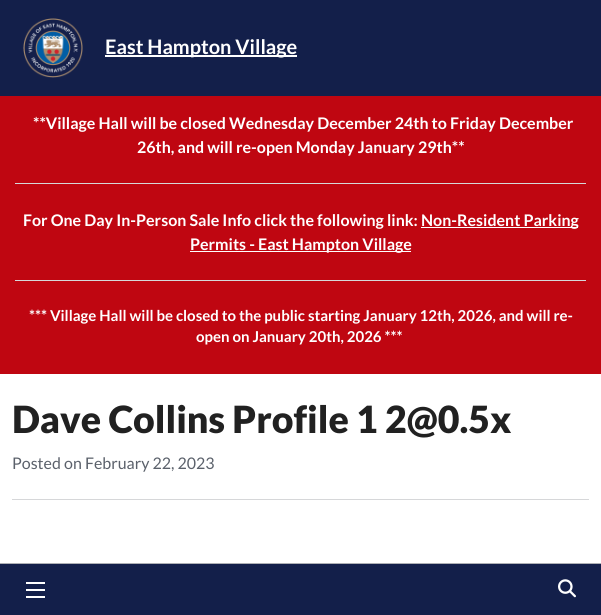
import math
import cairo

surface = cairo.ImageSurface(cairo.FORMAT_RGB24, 601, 615)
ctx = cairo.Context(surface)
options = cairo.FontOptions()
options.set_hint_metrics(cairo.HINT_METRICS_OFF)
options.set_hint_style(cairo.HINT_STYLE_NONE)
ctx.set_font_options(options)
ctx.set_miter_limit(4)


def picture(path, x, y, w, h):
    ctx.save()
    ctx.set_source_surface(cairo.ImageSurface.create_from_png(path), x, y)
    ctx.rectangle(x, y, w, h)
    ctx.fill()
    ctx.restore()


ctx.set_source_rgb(1, 1, 1)
ctx.paint()
ctx.set_source_rgb(0.078, 0.122, 0.29)
ctx.rectangle(0, 0, 601, 96)
ctx.fill()
picture("img1.png", 23, 18, 60, 60)
ctx.set_source_rgb(1, 1, 1)
ctx.rectangle(105, 55, 192, 2)
ctx.fill()
ctx.select_font_face("Lato", cairo.FONT_SLANT_NORMAL, cairo.FONT_WEIGHT_BOLD)
ctx.set_font_size(20)
ctx.move_to(105, 54)
ctx.show_text("East Hampton Village")
ctx.set_source_rgb(0.078, 0.122, 0.29)
ctx.rectangle(0, 564, 601, 51)
ctx.fill()
ctx.set_source_rgb(0.682, 0.69, 0.71)
ctx.rectangle(0, 563, 601, 1)
ctx.fill()
picture("img2.png", 558, 579, 18, 19)
ctx.set_source_rgb(1, 1, 1)
ctx.rectangle(26, 589, 19, 2)
ctx.fill()
ctx.rectangle(26, 582, 19, 2)
ctx.fill()
ctx.rectangle(26, 596, 19, 2)
ctx.fill()
ctx.set_source_rgb(0.749, 0.027, 0.067)
ctx.rectangle(0, 96, 601, 278)
ctx.fill()
ctx.set_font_size(16)
ctx.set_source_rgb(1, 1, 1)
ctx.move_to(33, 129)
ctx.show_text("**Village Hall will be closed Wednesday December 24th to Friday December")
ctx.move_to(137, 153)
ctx.show_text("26th, and will re-open Monday January 29th**")
ctx.set_source_rgb(0.839, 0.843, 0.851)
ctx.rectangle(15, 183, 571, 1)
ctx.fill()
ctx.set_source_rgb(1, 1, 1)
ctx.move_to(23, 226)
ctx.show_text("For One Day In-Person Sale Info click the following link:")
ctx.rectangle(421, 227, 157, 1)
ctx.fill()
ctx.move_to(421, 226)
ctx.show_text("Non-Resident Parking")
ctx.rectangle(190, 251, 221, 1)
ctx.fill()
ctx.move_to(190, 250)
ctx.show_text("Permits - East Hampton Village")
ctx.set_source_rgb(0.839, 0.843, 0.851)
ctx.rectangle(15, 280, 571, 1)
ctx.fill()
ctx.set_font_size(15)
ctx.set_source_rgb(1, 1, 1)
ctx.move_to(29, 321)
ctx.show_text("*** Village Hall will be closed to the public starting January 12th, 2026, and will re-")
ctx.move_to(196, 342)
ctx.show_text("open on January 20th, 2026 ***")
ctx.select_font_face("Lato Black")
ctx.set_font_size(37.5)
ctx.set_source_rgb(0.129, 0.129, 0.129)
ctx.move_to(12, 433)
ctx.show_text("Dave Collins Profile 1 2@0.5x")
ctx.select_font_face("Lato")
ctx.set_font_size(16)
ctx.set_source_rgb(0.357, 0.38, 0.42)
ctx.move_to(12, 469)
ctx.show_text("Posted on February 22, 2023")
ctx.set_source_rgb(0.839, 0.843, 0.851)
ctx.rectangle(12, 499, 577, 1)
ctx.fill()
surface.write_to_png("page.png")
